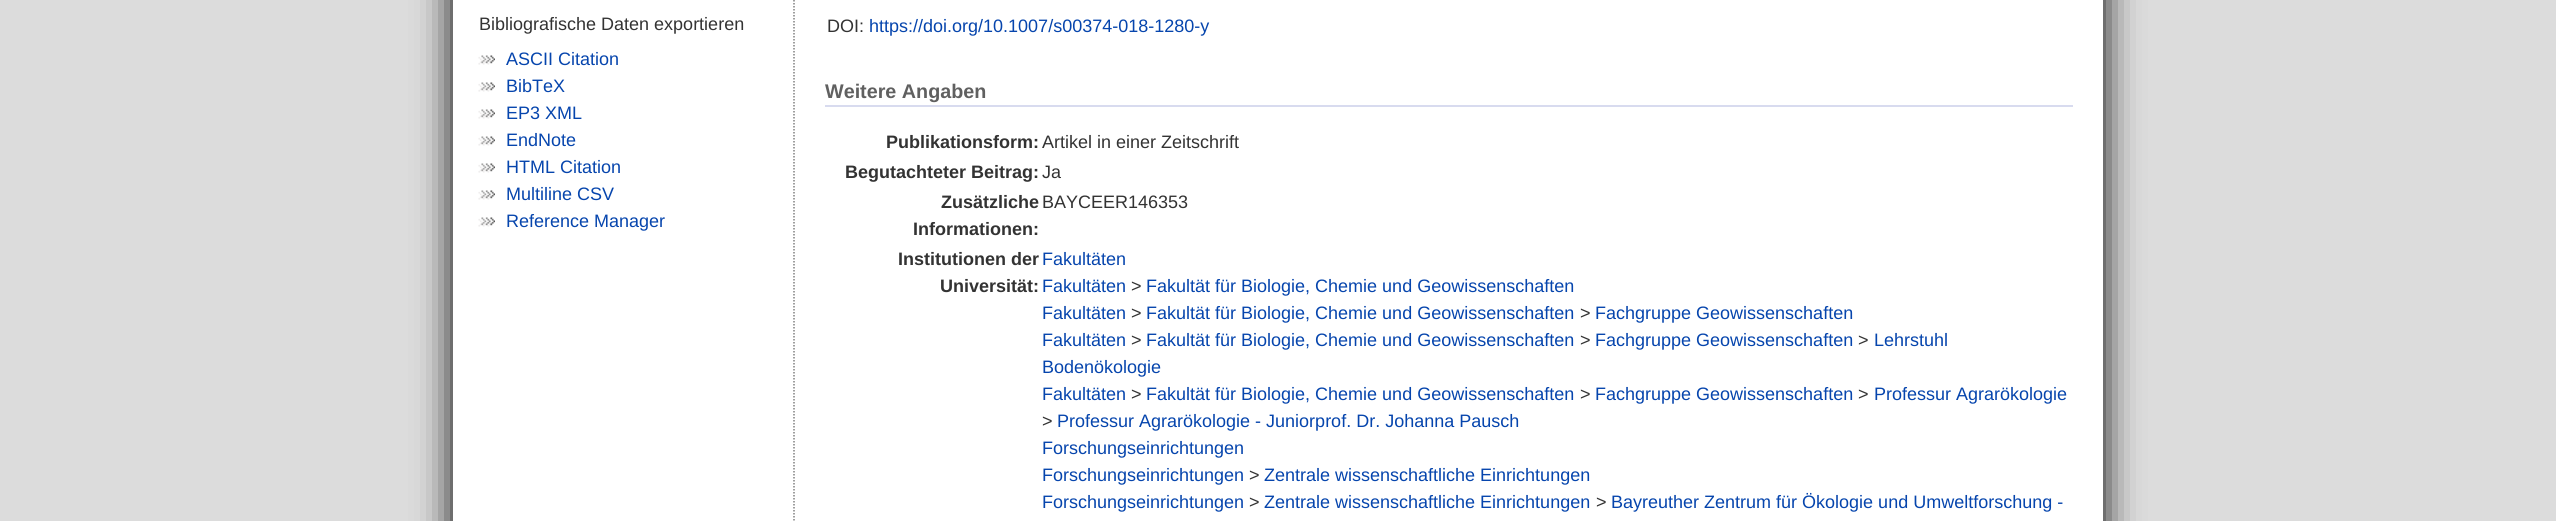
import math
import cairo

surface = cairo.ImageSurface(cairo.FORMAT_RGB24, 2556, 521)
ctx = cairo.Context(surface)
options = cairo.FontOptions()
options.set_hint_metrics(cairo.HINT_METRICS_OFF)
options.set_hint_style(cairo.HINT_STYLE_NONE)
ctx.set_font_options(options)
ctx.set_miter_limit(4)


def round_rect(x, y, w, h, r):
    ctx.new_sub_path()
    for i, (u, v) in enumerate([(x + w - r, y + h - r), (x + r, y + h - r), (x + r, y + r), (x + w - r, y + r)]):
        ctx.arc(u, v, r, i * math.pi / 2, (i + 1) * math.pi / 2)
    ctx.close_path()


def shadow(x, y, w, h, r, blur, alpha):
    ctx.push_group_with_content(cairo.CONTENT_ALPHA)
    ctx.set_operator(cairo.OPERATOR_SOURCE)
    for i in range(15, -16, -2):
        e = blur * i / 6
        if min(w, h) + 2 * e > 0:
            ctx.set_source_rgba(0, 0, 0, alpha * math.erfc((i - 1) / 8.5) / 2)
            round_rect(x - e, y - e, w + 2 * e, h + 2 * e, max(0, min(r + e + blur * .6, min(w, h) / 2 + e)))
            ctx.fill()
    ctx.mask(ctx.pop_group())


def picture(path, x, y, w, h):
    ctx.save()
    ctx.set_source_surface(cairo.ImageSurface.create_from_png(path), x, y)
    ctx.rectangle(x, y, w, h)
    ctx.fill()
    ctx.restore()


ctx.set_source_rgb(0.863, 0.863, 0.863)
ctx.paint()
ctx.set_source_rgb(0, 0, 0)
shadow(453, -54, 1650, 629, 0, 18, 1)
ctx.set_source_rgb(1, 1, 1)
ctx.rectangle(453, 0, 1650, 521)
ctx.fill()
ctx.select_font_face("Liberation Sans")
ctx.set_font_size(18)
ctx.set_source_rgb(0.2, 0.2, 0.2)
ctx.move_to(479, 30)
ctx.show_text("Bibliografische Daten exportieren")
picture("img1.png", 478, 55, 17, 10)
ctx.set_source_rgb(0.024, 0.271, 0.678)
ctx.move_to(506, 65)
ctx.show_text("ASCII Citation")
picture("img1.png", 478, 82, 17, 10)
ctx.move_to(506, 92)
ctx.show_text("BibTeX")
picture("img1.png", 478, 109, 17, 10)
ctx.move_to(506, 119)
ctx.show_text("EP3 XML")
picture("img1.png", 478, 136, 17, 10)
ctx.move_to(506, 146)
ctx.show_text("EndNote")
picture("img1.png", 478, 163, 17, 10)
ctx.move_to(506, 173)
ctx.show_text("HTML Citation")
picture("img1.png", 478, 190, 17, 10)
ctx.move_to(506, 200)
ctx.show_text("Multiline CSV")
picture("img1.png", 478, 217, 17, 10)
ctx.move_to(506, 227)
ctx.show_text("Reference Manager")
ctx.new_path()
ctx.move_to(794, -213)
ctx.line_to(794, 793.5)
ctx.set_source_rgb(0.502, 0.502, 0.502)
ctx.set_line_width(1.5)
ctx.set_dash([1.5, 1.5])
ctx.stroke()
ctx.set_source_rgb(0.2, 0.2, 0.2)
ctx.move_to(827, 32)
ctx.show_text("DOI:")
ctx.set_source_rgb(0.024, 0.271, 0.678)
ctx.move_to(869, 32)
ctx.show_text("https://doi.org/10.1007/s00374-018-1280-y")
ctx.set_source_rgb(0.847, 0.859, 0.937)
ctx.rectangle(825, 105, 1248, 2)
ctx.fill()
ctx.select_font_face("Liberation Sans", cairo.FONT_SLANT_NORMAL, cairo.FONT_WEIGHT_BOLD)
ctx.set_font_size(19.75)
ctx.set_source_rgb(0.376, 0.376, 0.376)
ctx.move_to(825, 98)
ctx.show_text("Weitere Angaben")
ctx.set_font_size(18)
ctx.set_source_rgb(0.2, 0.2, 0.2)
ctx.move_to(886, 148)
ctx.show_text("Publikationsform:")
ctx.select_font_face("Liberation Sans")
ctx.move_to(1042, 148)
ctx.show_text("Artikel in einer Zeitschrift")
ctx.select_font_face("Liberation Sans", cairo.FONT_SLANT_NORMAL, cairo.FONT_WEIGHT_BOLD)
ctx.move_to(845, 178)
ctx.show_text("Begutachteter Beitrag:")
ctx.select_font_face("Liberation Sans")
ctx.move_to(1042, 178)
ctx.show_text("Ja")
ctx.select_font_face("Liberation Sans", cairo.FONT_SLANT_NORMAL, cairo.FONT_WEIGHT_BOLD)
ctx.move_to(941, 208)
ctx.show_text("Zusätzliche")
ctx.move_to(913, 235)
ctx.show_text("Informationen:")
ctx.select_font_face("Liberation Sans")
ctx.move_to(1042, 208)
ctx.show_text("BAYCEER146353")
ctx.select_font_face("Liberation Sans", cairo.FONT_SLANT_NORMAL, cairo.FONT_WEIGHT_BOLD)
ctx.move_to(898, 265)
ctx.show_text("Institutionen der")
ctx.move_to(940, 292)
ctx.show_text("Universität:")
ctx.select_font_face("Liberation Sans")
ctx.set_source_rgb(0.024, 0.271, 0.678)
ctx.move_to(1042, 265)
ctx.show_text("Fakultäten")
ctx.move_to(1042, 292)
ctx.show_text("Fakultäten")
ctx.set_source_rgb(0.2, 0.2, 0.2)
ctx.move_to(1131, 292)
ctx.show_text(">")
ctx.set_source_rgb(0.024, 0.271, 0.678)
ctx.move_to(1146, 292)
ctx.show_text("Fakultät für Biologie, Chemie und Geowissenschaften")
ctx.move_to(1042, 319)
ctx.show_text("Fakultäten")
ctx.set_source_rgb(0.2, 0.2, 0.2)
ctx.move_to(1131, 319)
ctx.show_text(">")
ctx.set_source_rgb(0.024, 0.271, 0.678)
ctx.move_to(1146, 319)
ctx.show_text("Fakultät für Biologie, Chemie und Geowissenschaften")
ctx.set_source_rgb(0.2, 0.2, 0.2)
ctx.move_to(1580, 319)
ctx.show_text(">")
ctx.set_source_rgb(0.024, 0.271, 0.678)
ctx.move_to(1595, 319)
ctx.show_text("Fachgruppe Geowissenschaften")
ctx.move_to(1042, 346)
ctx.show_text("Fakultäten")
ctx.set_source_rgb(0.2, 0.2, 0.2)
ctx.move_to(1131, 346)
ctx.show_text(">")
ctx.set_source_rgb(0.024, 0.271, 0.678)
ctx.move_to(1146, 346)
ctx.show_text("Fakultät für Biologie, Chemie und Geowissenschaften")
ctx.set_source_rgb(0.2, 0.2, 0.2)
ctx.move_to(1580, 346)
ctx.show_text(">")
ctx.set_source_rgb(0.024, 0.271, 0.678)
ctx.move_to(1595, 346)
ctx.show_text("Fachgruppe Geowissenschaften")
ctx.set_source_rgb(0.2, 0.2, 0.2)
ctx.move_to(1858, 346)
ctx.show_text(">")
ctx.set_source_rgb(0.024, 0.271, 0.678)
ctx.move_to(1874, 346)
ctx.show_text("Lehrstuhl")
ctx.move_to(1042, 373)
ctx.show_text("Bodenökologie")
ctx.move_to(1042, 400)
ctx.show_text("Fakultäten")
ctx.set_source_rgb(0.2, 0.2, 0.2)
ctx.move_to(1131, 400)
ctx.show_text(">")
ctx.set_source_rgb(0.024, 0.271, 0.678)
ctx.move_to(1146, 400)
ctx.show_text("Fakultät für Biologie, Chemie und Geowissenschaften")
ctx.set_source_rgb(0.2, 0.2, 0.2)
ctx.move_to(1580, 400)
ctx.show_text(">")
ctx.set_source_rgb(0.024, 0.271, 0.678)
ctx.move_to(1595, 400)
ctx.show_text("Fachgruppe Geowissenschaften")
ctx.set_source_rgb(0.2, 0.2, 0.2)
ctx.move_to(1858, 400)
ctx.show_text(">")
ctx.set_source_rgb(0.024, 0.271, 0.678)
ctx.move_to(1874, 400)
ctx.show_text("Professur Agrarökologie")
ctx.set_source_rgb(0.2, 0.2, 0.2)
ctx.move_to(1042, 427)
ctx.show_text(">")
ctx.set_source_rgb(0.024, 0.271, 0.678)
ctx.move_to(1057, 427)
ctx.show_text("Professur Agrarökologie - Juniorprof. Dr. Johanna Pausch")
ctx.move_to(1042, 454)
ctx.show_text("Forschungseinrichtungen")
ctx.move_to(1042, 481)
ctx.show_text("Forschungseinrichtungen")
ctx.set_source_rgb(0.2, 0.2, 0.2)
ctx.move_to(1249, 481)
ctx.show_text(">")
ctx.set_source_rgb(0.024, 0.271, 0.678)
ctx.move_to(1264, 481)
ctx.show_text("Zentrale wissenschaftliche Einrichtungen")
ctx.move_to(1042, 508)
ctx.show_text("Forschungseinrichtungen")
ctx.set_source_rgb(0.2, 0.2, 0.2)
ctx.move_to(1249, 508)
ctx.show_text(">")
ctx.set_source_rgb(0.024, 0.271, 0.678)
ctx.move_to(1264, 508)
ctx.show_text("Zentrale wissenschaftliche Einrichtungen")
ctx.set_source_rgb(0.2, 0.2, 0.2)
ctx.move_to(1596, 508)
ctx.show_text(">")
ctx.set_source_rgb(0.024, 0.271, 0.678)
ctx.move_to(1611, 508)
ctx.show_text("Bayreuther Zentrum für Ökologie und Umweltforschung -")
surface.write_to_png("page.png")
